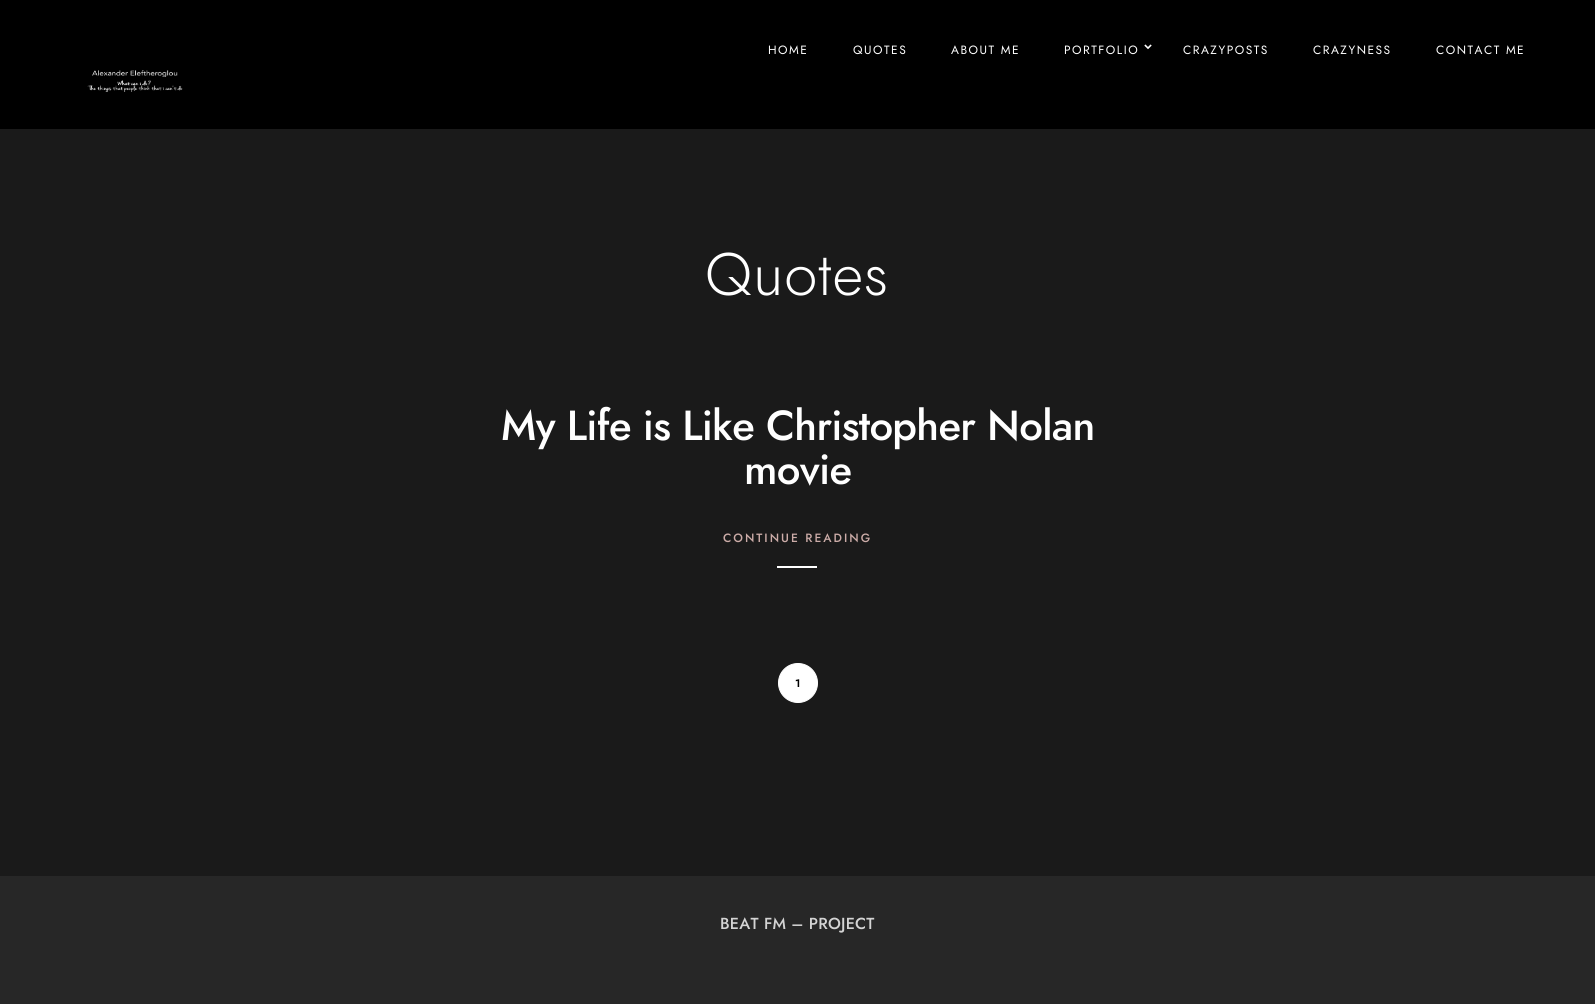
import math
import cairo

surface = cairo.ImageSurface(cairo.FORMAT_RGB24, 1595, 1004)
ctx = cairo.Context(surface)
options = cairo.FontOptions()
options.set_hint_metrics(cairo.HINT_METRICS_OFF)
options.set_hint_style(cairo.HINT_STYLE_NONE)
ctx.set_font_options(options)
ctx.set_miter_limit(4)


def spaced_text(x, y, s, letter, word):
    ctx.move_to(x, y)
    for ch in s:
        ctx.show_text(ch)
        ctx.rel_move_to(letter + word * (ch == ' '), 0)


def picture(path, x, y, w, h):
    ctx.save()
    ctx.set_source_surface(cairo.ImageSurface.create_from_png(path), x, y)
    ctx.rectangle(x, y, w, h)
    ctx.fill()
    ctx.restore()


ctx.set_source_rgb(0.102, 0.102, 0.102)
ctx.paint()
ctx.set_source_rgb(0, 0, 0)
ctx.rectangle(0, 0, 1595, 129)
ctx.fill()
ctx.select_font_face("Jost")
ctx.set_font_size(12)
ctx.set_source_rgb(1, 1, 1)
spaced_text(768, 54, "HOME", 1.5, 0)
spaced_text(853, 54, "QUOTES", 1.5, 0)
spaced_text(951, 54, "ABOUT ME", 1.5, 0)
spaced_text(1064, 54, "PORTFOLIO", 1.5, 0)
picture("img1.png", 1144, 44, 8, 6)
spaced_text(1183, 54, "CRAZYPOSTS", 1.5, 0)
spaced_text(1313, 54, "CRAZYNESS", 1.5, 0)
spaced_text(1436, 54, "CONTACT ME", 1.5, 0)
picture("img2.png", 87, 70, 96, 22)
ctx.select_font_face("Jost Light")
ctx.set_font_size(60)
spaced_text(705, 295, "Quotes", 1, 0)
ctx.select_font_face("Jost Medium")
ctx.set_font_size(42)
spaced_text(501, 440, "My Life is Like Christopher Nolan", -0.7, 0)
spaced_text(744, 484, "movie", -0.7, 0)
ctx.set_font_size(12)
ctx.set_source_rgb(0.8, 0.675, 0.659)
spaced_text(723, 542, "CONTINUE READING", 2, 0)
ctx.set_source_rgb(1, 1, 1)
ctx.rectangle(777, 566, 40, 2)
ctx.fill()
ctx.arc(798, 683, 19.5, 0, 2 * math.pi)
ctx.fill_preserve()
ctx.set_line_width(1)
ctx.stroke()
ctx.select_font_face("Jost SemiBold")
ctx.set_font_size(11)
ctx.set_source_rgb(0, 0, 0)
ctx.move_to(795, 687)
ctx.show_text("1")
ctx.set_source_rgb(0.153, 0.153, 0.153)
ctx.rectangle(0, 876, 1595, 128)
ctx.fill()
ctx.select_font_face("Jost Medium")
ctx.set_font_size(16)
ctx.set_source_rgb(0.831, 0.831, 0.831)
spaced_text(720, 929, "BEAT FM – PROJECT", 0.25, 0)
surface.write_to_png("page.png")
